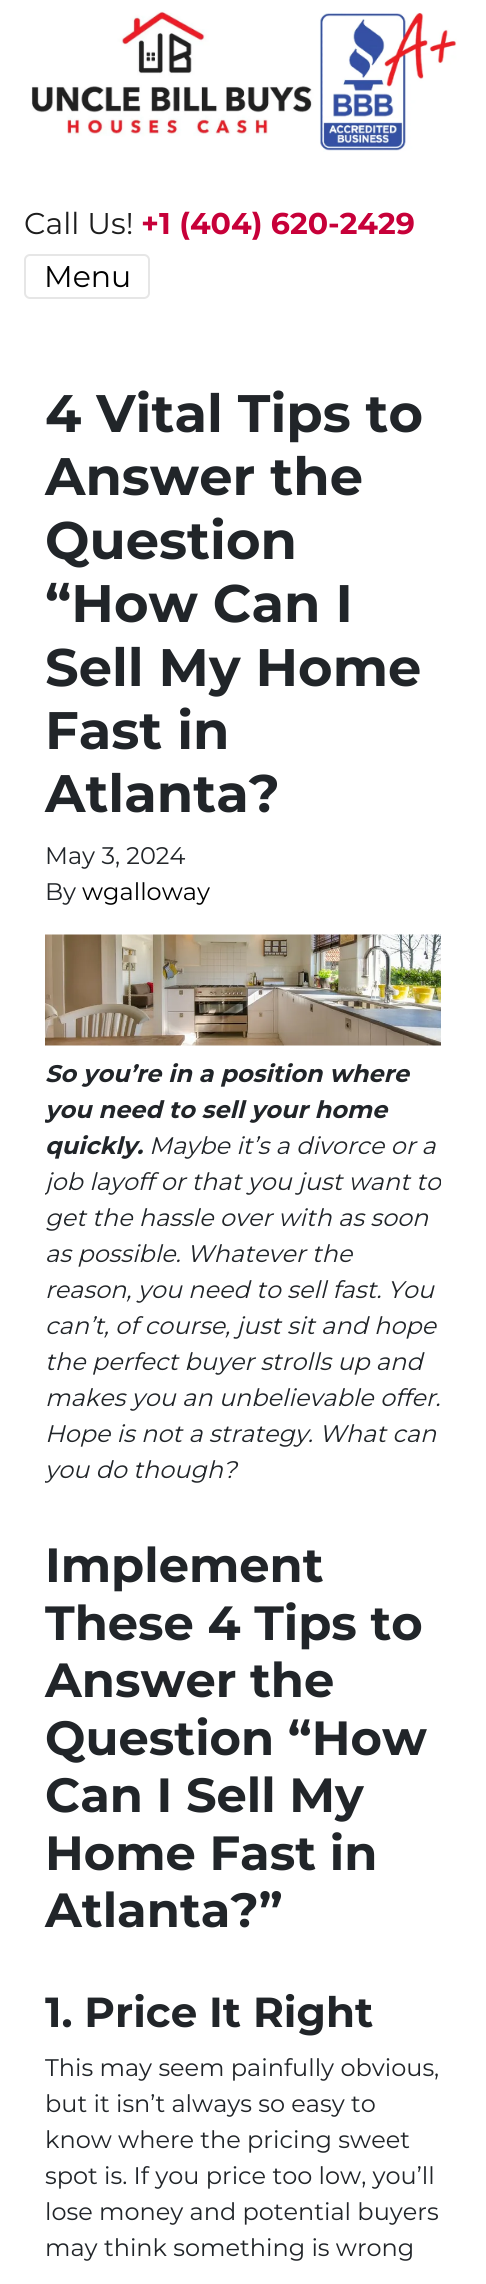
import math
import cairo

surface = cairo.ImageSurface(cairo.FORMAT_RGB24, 486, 2284)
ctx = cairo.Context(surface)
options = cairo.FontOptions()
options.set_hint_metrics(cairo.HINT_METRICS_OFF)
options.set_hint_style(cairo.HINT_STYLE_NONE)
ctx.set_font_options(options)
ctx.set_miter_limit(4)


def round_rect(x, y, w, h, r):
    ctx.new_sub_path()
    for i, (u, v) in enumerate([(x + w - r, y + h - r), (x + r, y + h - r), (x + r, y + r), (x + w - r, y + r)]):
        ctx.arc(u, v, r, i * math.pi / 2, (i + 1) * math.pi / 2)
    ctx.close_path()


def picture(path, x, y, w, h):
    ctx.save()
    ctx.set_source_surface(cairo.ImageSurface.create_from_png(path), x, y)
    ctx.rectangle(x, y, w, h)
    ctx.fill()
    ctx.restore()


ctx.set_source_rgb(1, 1, 1)
ctx.paint()
picture("img1.png", 31, 10, 426, 142)
ctx.select_font_face("Montserrat")
ctx.set_font_size(30)
ctx.set_source_rgb(0.114, 0.114, 0.114)
ctx.move_to(24, 234)
ctx.show_text("Call Us!")
ctx.select_font_face("Montserrat", cairo.FONT_SLANT_NORMAL, cairo.FONT_WEIGHT_BOLD)
ctx.set_source_rgb(0.78, 0, 0.224)
ctx.move_to(141, 234)
ctx.show_text("+1 (404) 620-2429")
round_rect(25, 255, 124, 43, 5)
ctx.set_source_rgb(0.902, 0.902, 0.902)
ctx.stroke()
ctx.select_font_face("Montserrat")
ctx.set_source_rgb(0, 0, 0)
ctx.move_to(44, 287)
ctx.show_text("Menu")
ctx.select_font_face("Montserrat", cairo.FONT_SLANT_NORMAL, cairo.FONT_WEIGHT_BOLD)
ctx.set_font_size(52.75)
ctx.set_source_rgb(0.129, 0.145, 0.161)
ctx.move_to(45, 432)
ctx.show_text("4 Vital Tips to")
ctx.move_to(45, 495)
ctx.show_text("Answer the")
ctx.move_to(45, 559)
ctx.show_text("Question")
ctx.move_to(45, 622)
ctx.show_text("“How Can I")
ctx.move_to(45, 686)
ctx.show_text("Sell My Home")
ctx.move_to(45, 749)
ctx.show_text("Fast in")
ctx.move_to(45, 812)
ctx.show_text("Atlanta?")
ctx.select_font_face("Montserrat")
ctx.set_font_size(24)
ctx.move_to(45, 864)
ctx.show_text("May 3, 2024")
ctx.move_to(45, 900)
ctx.show_text("By")
ctx.set_source_rgb(0, 0, 0)
ctx.move_to(82, 900)
ctx.show_text("wgalloway")
picture("img2.png", 45, 934, 396, 112)
ctx.select_font_face("Montserrat", cairo.FONT_SLANT_ITALIC, cairo.FONT_WEIGHT_BOLD)
ctx.set_source_rgb(0.129, 0.145, 0.161)
ctx.move_to(45, 1082)
ctx.show_text("So you’re in a position where")
ctx.save()
ctx.rectangle(45, 335, 396, 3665)
ctx.clip()
ctx.move_to(45, 1118)
ctx.show_text("you need to sell your home")
ctx.restore()
ctx.move_to(45, 1154)
ctx.show_text("quickly.")
ctx.select_font_face("Montserrat", cairo.FONT_SLANT_ITALIC)
ctx.move_to(149, 1154)
ctx.show_text("Maybe it’s a divorce or a")
ctx.save()
ctx.rectangle(45, 335, 396, 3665)
ctx.clip()
ctx.move_to(45, 1190)
ctx.show_text("job layoff or that you just want to")
ctx.restore()
ctx.move_to(45, 1226)
ctx.show_text("get the hassle over with as soon")
ctx.move_to(45, 1262)
ctx.show_text("as possible. Whatever the")
ctx.move_to(45, 1298)
ctx.show_text("reason, you need to sell fast. You")
ctx.move_to(45, 1334)
ctx.show_text("can’t, of course, just sit and hope")
ctx.move_to(45, 1370)
ctx.show_text("the perfect buyer strolls up and")
ctx.move_to(45, 1406)
ctx.show_text("makes you an unbelievable offer.")
ctx.move_to(45, 1442)
ctx.show_text("Hope is not a strategy. What can")
ctx.save()
ctx.rectangle(45, 335, 396, 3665)
ctx.clip()
ctx.move_to(45, 1478)
ctx.show_text("you do though?")
ctx.restore()
ctx.select_font_face("Montserrat", cairo.FONT_SLANT_NORMAL, cairo.FONT_WEIGHT_BOLD)
ctx.set_font_size(48)
ctx.move_to(45, 1582)
ctx.show_text("Implement")
ctx.move_to(45, 1640)
ctx.show_text("These 4 Tips to")
ctx.move_to(45, 1697)
ctx.show_text("Answer the")
ctx.move_to(45, 1755)
ctx.show_text("Question “How")
ctx.move_to(45, 1812)
ctx.show_text("Can I Sell My")
ctx.move_to(45, 1870)
ctx.show_text("Home Fast in")
ctx.move_to(45, 1927)
ctx.show_text("Atlanta?”")
ctx.set_font_size(42)
ctx.move_to(45, 2027)
ctx.show_text("1. Price It Right")
ctx.select_font_face("Montserrat")
ctx.set_font_size(24)
ctx.move_to(45, 2076)
ctx.show_text("This may seem painfully obvious,")
ctx.move_to(45, 2112)
ctx.show_text("but it isn’t always so easy to")
ctx.move_to(45, 2148)
ctx.show_text("know where the pricing sweet")
ctx.move_to(45, 2184)
ctx.show_text("spot is. If you price too low, you’ll")
ctx.move_to(45, 2220)
ctx.show_text("lose money and potential buyers")
ctx.move_to(45, 2256)
ctx.show_text("may think something is wrong")
surface.write_to_png("page.png")
